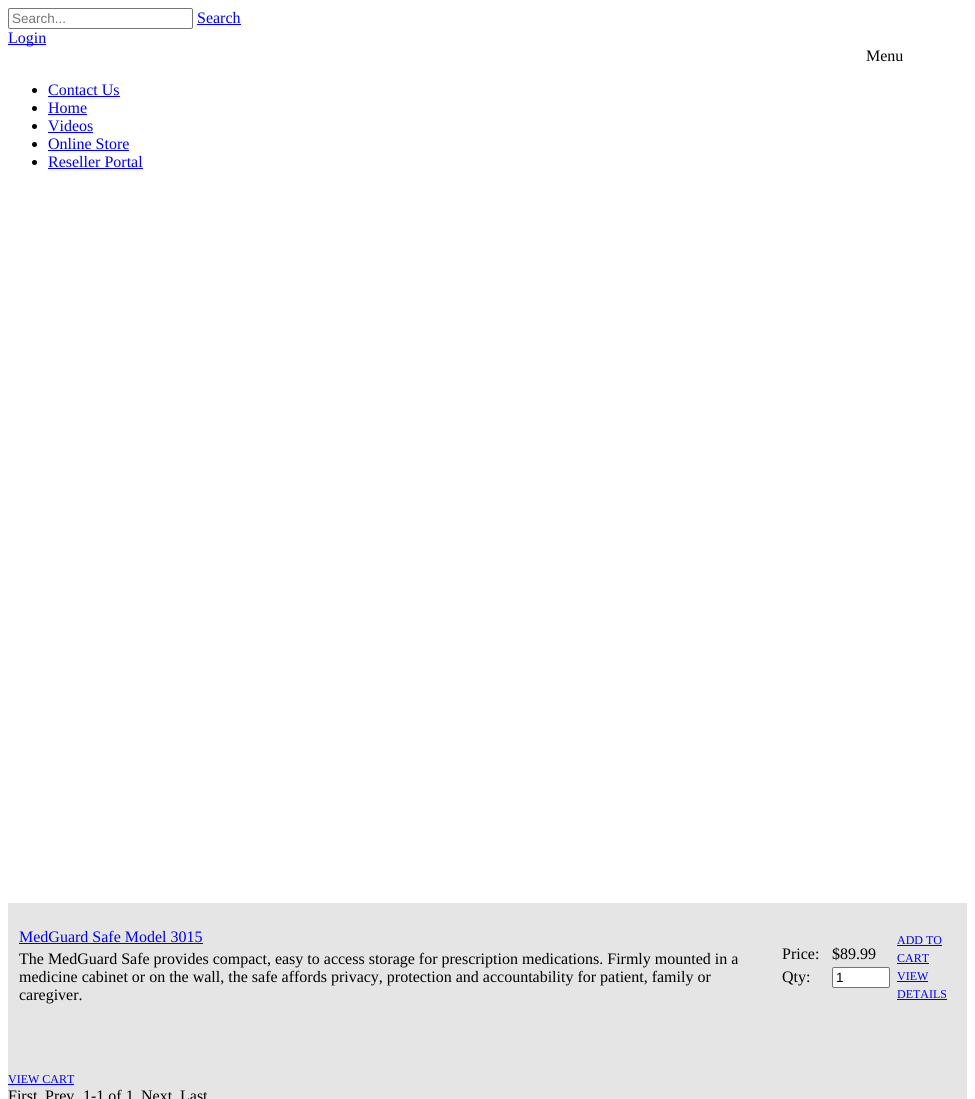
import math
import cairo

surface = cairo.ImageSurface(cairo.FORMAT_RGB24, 975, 1099)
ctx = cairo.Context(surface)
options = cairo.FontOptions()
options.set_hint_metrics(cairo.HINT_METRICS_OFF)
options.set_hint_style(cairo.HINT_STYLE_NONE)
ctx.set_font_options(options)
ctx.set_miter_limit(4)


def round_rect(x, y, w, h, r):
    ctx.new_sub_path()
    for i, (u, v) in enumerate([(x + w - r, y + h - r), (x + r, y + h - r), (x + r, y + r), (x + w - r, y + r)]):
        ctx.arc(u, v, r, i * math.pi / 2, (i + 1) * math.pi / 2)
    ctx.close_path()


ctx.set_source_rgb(1, 1, 1)
ctx.paint()
round_rect(8.5, 8.5, 184, 20, 1.5)
ctx.set_source_rgb(0.463, 0.463, 0.463)
ctx.set_line_width(1)
ctx.stroke()
ctx.select_font_face("Liberation Sans")
ctx.set_font_size(13.5)
ctx.set_source_rgb(0.459, 0.459, 0.459)
ctx.move_to(12, 23)
ctx.show_text("Search...")
ctx.select_font_face("Liberation Serif")
ctx.set_font_size(16)
ctx.set_source_rgb(0, 0, 0.933)
ctx.move_to(197, 23)
ctx.show_text("Search")
ctx.rectangle(197, 24, 44, 1)
ctx.fill()
ctx.rectangle(8, 44, 38, 1)
ctx.fill()
ctx.move_to(8, 43)
ctx.show_text("Login")
ctx.set_source_rgb(0, 0, 0)
ctx.move_to(866, 61)
ctx.show_text("Menu")
ctx.new_path()
ctx.arc(34.5, 90.5, 2.5, 0, 2 * math.pi)
ctx.fill()
ctx.set_source_rgb(0, 0, 0.933)
ctx.move_to(48, 95)
ctx.show_text("Contact Us")
ctx.rectangle(48, 96, 72, 1)
ctx.fill()
ctx.set_source_rgb(0, 0, 0)
ctx.arc(34.5, 108.5, 2.5, 0, 2 * math.pi)
ctx.fill()
ctx.set_source_rgb(0, 0, 0.933)
ctx.move_to(48, 113)
ctx.show_text("Home")
ctx.rectangle(48, 114, 39, 1)
ctx.fill()
ctx.set_source_rgb(0, 0, 0)
ctx.arc(34.5, 126.5, 2.5, 0, 2 * math.pi)
ctx.fill()
ctx.set_source_rgb(0, 0, 0.933)
ctx.move_to(48, 131)
ctx.show_text("Videos")
ctx.rectangle(48, 132, 45, 1)
ctx.fill()
ctx.set_source_rgb(0, 0, 0)
ctx.arc(34.5, 144.5, 2.5, 0, 2 * math.pi)
ctx.fill()
ctx.set_source_rgb(0, 0, 0.933)
ctx.move_to(48, 149)
ctx.show_text("Online Store")
ctx.rectangle(48, 150, 81, 1)
ctx.fill()
ctx.set_source_rgb(0, 0, 0)
ctx.arc(34.5, 162.5, 2.5, 0, 2 * math.pi)
ctx.fill()
ctx.set_source_rgb(0, 0, 0.933)
ctx.move_to(48, 167)
ctx.show_text("Reseller Portal")
ctx.rectangle(48, 168, 95, 1)
ctx.fill()
ctx.set_source_rgb(0.898, 0.898, 0.898)
ctx.rectangle(8, 903, 959, 196)
ctx.fill()
ctx.set_source_rgb(0, 0, 0.933)
ctx.move_to(19, 942)
ctx.show_text("MedGuard Safe Model 3015")
ctx.rectangle(19, 943, 184, 1)
ctx.fill()
ctx.set_source_rgb(0, 0, 0)
ctx.move_to(19, 964)
ctx.show_text("The MedGuard Safe provides compact, easy to access storage for prescription medications. Firmly mounted in a")
ctx.move_to(19, 982)
ctx.show_text("medicine cabinet or on the wall, the safe affords privacy, protection and accountability for patient, family or")
ctx.move_to(19, 1000)
ctx.show_text("caregiver.")
ctx.move_to(782, 959)
ctx.show_text("Price:")
ctx.move_to(832, 959)
ctx.show_text("$89.99")
ctx.move_to(782, 982)
ctx.show_text("Qty:")
ctx.set_source_rgb(1, 1, 1)
round_rect(832.5, 967.5, 57, 20, 1.5)
ctx.fill_preserve()
ctx.set_source_rgb(0.463, 0.463, 0.463)
ctx.stroke()
ctx.select_font_face("Liberation Sans")
ctx.set_font_size(13.5)
ctx.set_source_rgb(0, 0, 0)
ctx.move_to(836, 982)
ctx.show_text("1")
ctx.select_font_face("Liberation Serif")
ctx.set_font_size(12)
ctx.set_source_rgb(0, 0, 0.933)
ctx.move_to(897, 944)
ctx.show_text("ADD TO")
ctx.rectangle(897, 945, 45, 1)
ctx.fill()
ctx.move_to(897, 962)
ctx.show_text("CART")
ctx.rectangle(897, 963, 32, 1)
ctx.fill()
ctx.move_to(897, 980)
ctx.show_text("VIEW")
ctx.rectangle(897, 981, 31, 1)
ctx.fill()
ctx.move_to(897, 998)
ctx.show_text("DETAILS")
ctx.rectangle(897, 999, 50, 1)
ctx.fill()
ctx.move_to(8, 1083)
ctx.show_text("VIEW CART")
ctx.rectangle(8, 1084, 66, 1)
ctx.fill()
ctx.set_font_size(16)
ctx.set_source_rgb(0, 0, 0)
ctx.move_to(8, 1101)
ctx.show_text("First")
ctx.move_to(45, 1101)
ctx.show_text("Prev")
ctx.move_to(83, 1101)
ctx.show_text("1-1 of 1")
ctx.move_to(141, 1101)
ctx.show_text("Next")
ctx.move_to(180, 1101)
ctx.show_text("Last")
surface.write_to_png("page.png")
